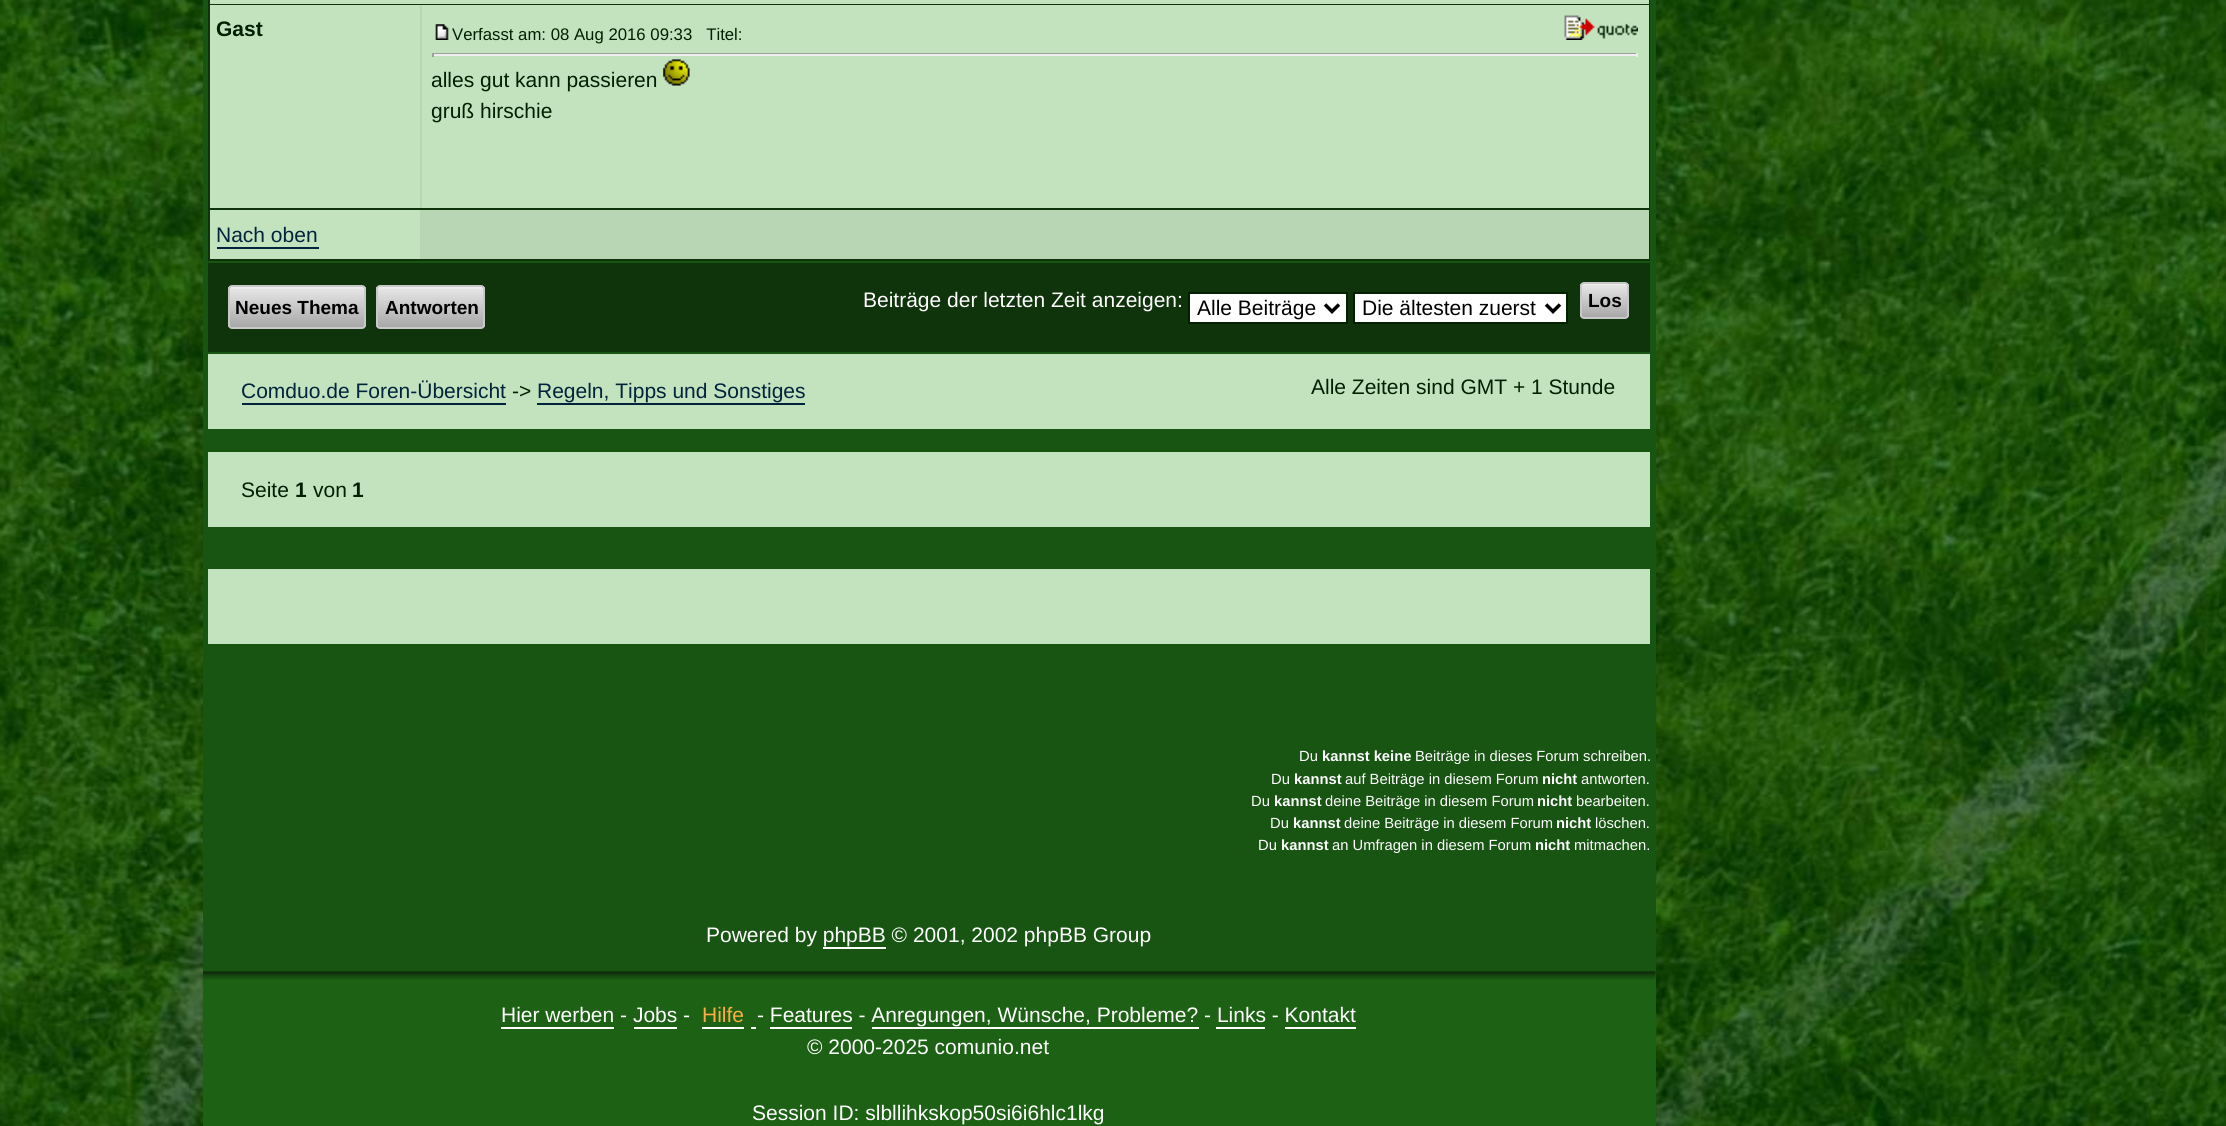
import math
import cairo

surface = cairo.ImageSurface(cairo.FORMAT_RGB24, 2226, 1126)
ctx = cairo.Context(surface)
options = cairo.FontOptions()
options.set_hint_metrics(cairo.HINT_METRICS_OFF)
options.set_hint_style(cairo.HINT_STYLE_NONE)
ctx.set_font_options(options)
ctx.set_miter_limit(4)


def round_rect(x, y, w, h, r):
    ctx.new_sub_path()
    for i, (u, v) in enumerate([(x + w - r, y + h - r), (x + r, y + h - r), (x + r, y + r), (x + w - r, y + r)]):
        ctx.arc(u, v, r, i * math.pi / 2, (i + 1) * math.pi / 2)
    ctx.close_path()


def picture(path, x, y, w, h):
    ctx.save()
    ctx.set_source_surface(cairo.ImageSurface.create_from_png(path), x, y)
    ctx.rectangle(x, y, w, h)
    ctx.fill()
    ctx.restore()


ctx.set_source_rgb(1, 1, 1)
ctx.paint()
picture("img1.png", 0, 0, 2226, 1126)
ctx.set_source_rgb(0.094, 0.329, 0.071)
ctx.rectangle(203, 0, 1453, 971)
ctx.fill()
ctx.set_source_rgb(0.059, 0.2, 0.043)
ctx.rectangle(208, 0, 1442, 261)
ctx.fill()
ctx.set_source_rgb(0.765, 0.89, 0.749)
ctx.rectangle(210, 0, 1439, 4)
ctx.fill()
ctx.set_source_rgb(0.722, 0.839, 0.706)
ctx.rectangle(420, 5, 2, 203)
ctx.fill()
ctx.set_source_rgb(0.765, 0.89, 0.749)
ctx.rectangle(210, 5, 210, 203)
ctx.fill()
ctx.select_font_face("Liberation Sans", cairo.FONT_SLANT_NORMAL, cairo.FONT_WEIGHT_BOLD)
ctx.set_font_size(21)
ctx.set_source_rgb(0, 0.125, 0)
ctx.move_to(216, 36)
ctx.show_text("Gast")
ctx.set_source_rgb(0.765, 0.89, 0.749)
ctx.rectangle(422, 5, 1227, 203)
ctx.fill()
picture("img2.png", 435, 24, 14, 16)
ctx.select_font_face("Liberation Sans")
ctx.set_font_size(16.75)
ctx.set_source_rgb(0, 0.125, 0)
ctx.move_to(452, 40)
ctx.show_text("Verfasst am: 08 Aug 2016 09:33   Titel:")
picture("img3.png", 1564, 15, 74, 25)
ctx.set_source_rgb(0.624, 0.624, 0.624)
ctx.rectangle(432, 53, 1206, 1)
ctx.fill()
ctx.set_source_rgb(0.933, 0.933, 0.933)
ctx.rectangle(1636, 53, 2, 4)
ctx.fill()
ctx.rectangle(432, 54, 1206, 2)
ctx.fill()
ctx.set_source_rgb(0.624, 0.624, 0.624)
ctx.rectangle(432, 53, 2, 4)
ctx.fill()
ctx.set_font_size(21)
ctx.set_source_rgb(0, 0.125, 0)
ctx.move_to(431, 87)
ctx.show_text("alles gut kann passieren")
picture("img4.png", 663, 59, 27, 27)
ctx.move_to(431, 118)
ctx.show_text("gruß hirschie")
ctx.set_source_rgb(0.722, 0.839, 0.706)
ctx.rectangle(420, 210, 1229, 49)
ctx.fill()
ctx.set_source_rgb(0.765, 0.89, 0.749)
ctx.rectangle(210, 210, 210, 49)
ctx.fill()
ctx.set_source_rgb(0.004, 0.137, 0.231)
ctx.move_to(216, 242)
ctx.show_text("Nach oben")
ctx.rectangle(217, 247, 102, 2)
ctx.fill()
ctx.set_source_rgb(0.059, 0.2, 0.043)
ctx.rectangle(208, 263, 1442, 89)
ctx.fill()
ctx.save()
round_rect(228, 285, 138, 44, 4)
ctx.clip()
gradient = cairo.LinearGradient(229, 287, 229, 327)
gradient.add_color_stop_rgba(0, 0.91, 0.91, 0.91, 1)
gradient.add_color_stop_rgba(1, 0.659, 0.659, 0.659, 1)
ctx.set_source(gradient)
ctx.rectangle(228, 287, 138, 40)
ctx.fill()
ctx.restore()
ctx.set_source_rgba(1, 1, 1, 0.2)
ctx.new_path()
ctx.move_to(231, 289)
ctx.line_to(362, 289)
ctx.line_to(364, 290)
ctx.curve_to(364, 289, 364, 287, 362, 287)
ctx.line_to(231, 287)
ctx.curve_to(229, 287, 229, 289, 229, 290)
ctx.close_path()
ctx.fill()
round_rect(229, 286, 136, 42, 3)
ctx.set_source_rgb(0.784, 0.784, 0.784)
ctx.stroke()
ctx.select_font_face("Liberation Sans", cairo.FONT_SLANT_NORMAL, cairo.FONT_WEIGHT_BOLD)
ctx.set_font_size(19)
ctx.set_source_rgb(0, 0, 0)
ctx.move_to(235, 314)
ctx.show_text("Neues Thema")
ctx.save()
round_rect(376, 285, 109, 44, 4)
ctx.clip()
gradient = cairo.LinearGradient(378, 287, 378, 327)
gradient.add_color_stop_rgba(0, 0.91, 0.91, 0.91, 1)
gradient.add_color_stop_rgba(1, 0.659, 0.659, 0.659, 1)
ctx.set_source(gradient)
ctx.rectangle(376, 287, 109, 40)
ctx.fill()
ctx.restore()
ctx.set_source_rgba(1, 1, 1, 0.2)
ctx.new_path()
ctx.move_to(380, 289)
ctx.line_to(481, 289)
ctx.line_to(483, 290)
ctx.curve_to(483, 289, 483, 287, 481, 287)
ctx.line_to(380, 287)
ctx.curve_to(378, 287, 378, 289, 378, 290)
ctx.close_path()
ctx.fill()
round_rect(377, 286, 107, 42, 3)
ctx.set_source_rgb(0.784, 0.784, 0.784)
ctx.stroke()
ctx.set_source_rgb(0, 0, 0)
ctx.move_to(385, 314)
ctx.show_text("Antworten")
ctx.select_font_face("Liberation Sans")
ctx.set_font_size(21)
ctx.set_source_rgb(1, 1, 1)
ctx.move_to(863, 307)
ctx.show_text("Beiträge der letzten Zeit anzeigen:")
ctx.rectangle(1189, 293, 158, 30)
ctx.fill_preserve()
ctx.set_source_rgb(0, 0.125, 0)
ctx.stroke()
ctx.new_path()
ctx.move_to(1325, 304.5)
ctx.line_to(1332, 311.5)
ctx.line_to(1339, 304.5)
ctx.set_source_rgb(0, 0, 0)
ctx.set_line_width(3.5)
ctx.stroke()
ctx.move_to(1197, 315)
ctx.show_text("Alle Beiträge")
ctx.set_source_rgb(1, 1, 1)
ctx.rectangle(1354, 293, 213, 30)
ctx.fill_preserve()
ctx.set_source_rgb(0, 0.125, 0)
ctx.set_line_width(2)
ctx.stroke()
ctx.new_path()
ctx.move_to(1546, 304.5)
ctx.line_to(1553, 311.5)
ctx.line_to(1560, 304.5)
ctx.set_source_rgb(0, 0, 0)
ctx.set_line_width(3.5)
ctx.stroke()
ctx.move_to(1362, 315)
ctx.show_text("Die ältesten zuerst")
ctx.save()
round_rect(1580, 282, 49, 37, 4)
ctx.clip()
gradient = cairo.LinearGradient(1582, 284, 1582, 317)
gradient.add_color_stop_rgba(0, 0.91, 0.91, 0.91, 1)
gradient.add_color_stop_rgba(1, 0.659, 0.659, 0.659, 1)
ctx.set_source(gradient)
ctx.rectangle(1580, 284, 49, 33)
ctx.fill()
ctx.restore()
ctx.set_source_rgb(0.925, 0.925, 0.925)
ctx.new_path()
ctx.move_to(1584, 285)
ctx.line_to(1626, 285)
ctx.curve_to(1627, 285, 1628, 286, 1628, 287)
ctx.curve_to(1628, 282, 1623, 284, 1619, 284)
ctx.line_to(1591, 284)
ctx.curve_to(1587, 284, 1582, 282, 1582, 287)
ctx.curve_to(1582, 286, 1583, 285, 1584, 285)
ctx.close_path()
ctx.fill()
round_rect(1581, 283, 47, 35, 3)
ctx.set_source_rgb(0.784, 0.784, 0.784)
ctx.set_line_width(2)
ctx.stroke()
ctx.select_font_face("Liberation Sans", cairo.FONT_SLANT_NORMAL, cairo.FONT_WEIGHT_BOLD)
ctx.set_font_size(19)
ctx.set_source_rgb(0, 0, 0)
ctx.move_to(1588, 307)
ctx.show_text("Los")
ctx.set_source_rgb(0.765, 0.89, 0.749)
ctx.rectangle(208, 354, 1442, 75)
ctx.fill()
ctx.select_font_face("Liberation Sans")
ctx.set_font_size(21)
ctx.set_source_rgb(0.004, 0.137, 0.231)
ctx.move_to(241, 398)
ctx.show_text("Comduo.de Foren-Übersicht")
ctx.rectangle(242, 403, 264, 2)
ctx.fill()
ctx.set_source_rgb(0, 0.125, 0)
ctx.move_to(512, 398)
ctx.show_text("->")
ctx.set_source_rgb(0.004, 0.137, 0.231)
ctx.move_to(537, 398)
ctx.show_text("Regeln, Tipps und Sonstiges")
ctx.rectangle(537, 403, 268, 2)
ctx.fill()
ctx.set_source_rgb(0, 0.125, 0)
ctx.move_to(1311, 394)
ctx.show_text("Alle Zeiten sind GMT + 1 Stunde")
ctx.set_source_rgb(0.765, 0.89, 0.749)
ctx.rectangle(208, 452, 1442, 75)
ctx.fill()
ctx.set_source_rgb(0, 0.125, 0)
ctx.move_to(241, 497)
ctx.show_text("Seite")
ctx.select_font_face("Liberation Sans", cairo.FONT_SLANT_NORMAL, cairo.FONT_WEIGHT_BOLD)
ctx.move_to(295, 497)
ctx.show_text("1")
ctx.select_font_face("Liberation Sans")
ctx.move_to(313, 497)
ctx.show_text("von")
ctx.select_font_face("Liberation Sans", cairo.FONT_SLANT_NORMAL, cairo.FONT_WEIGHT_BOLD)
ctx.move_to(352, 497)
ctx.show_text("1")
ctx.set_source_rgb(0.765, 0.89, 0.749)
ctx.rectangle(208, 569, 1442, 75)
ctx.fill()
ctx.select_font_face("Liberation Sans")
ctx.set_font_size(14.75)
ctx.set_source_rgb(1, 1, 1)
ctx.move_to(1299, 761)
ctx.show_text("Du")
ctx.select_font_face("Liberation Sans", cairo.FONT_SLANT_NORMAL, cairo.FONT_WEIGHT_BOLD)
ctx.move_to(1322, 761)
ctx.show_text("kannst keine")
ctx.select_font_face("Liberation Sans")
ctx.move_to(1415, 761)
ctx.show_text("Beiträge in dieses Forum schreiben.")
ctx.move_to(1271, 784)
ctx.show_text("Du")
ctx.select_font_face("Liberation Sans", cairo.FONT_SLANT_NORMAL, cairo.FONT_WEIGHT_BOLD)
ctx.move_to(1294, 784)
ctx.show_text("kannst")
ctx.select_font_face("Liberation Sans")
ctx.move_to(1345, 784)
ctx.show_text("auf Beiträge in diesem Forum")
ctx.select_font_face("Liberation Sans", cairo.FONT_SLANT_NORMAL, cairo.FONT_WEIGHT_BOLD)
ctx.move_to(1542, 784)
ctx.show_text("nicht")
ctx.select_font_face("Liberation Sans")
ctx.move_to(1581, 784)
ctx.show_text("antworten.")
ctx.move_to(1251, 806)
ctx.show_text("Du")
ctx.select_font_face("Liberation Sans", cairo.FONT_SLANT_NORMAL, cairo.FONT_WEIGHT_BOLD)
ctx.move_to(1274, 806)
ctx.show_text("kannst")
ctx.select_font_face("Liberation Sans")
ctx.move_to(1325, 806)
ctx.show_text("deine Beiträge in diesem Forum")
ctx.select_font_face("Liberation Sans", cairo.FONT_SLANT_NORMAL, cairo.FONT_WEIGHT_BOLD)
ctx.move_to(1537, 806)
ctx.show_text("nicht")
ctx.select_font_face("Liberation Sans")
ctx.move_to(1576, 806)
ctx.show_text("bearbeiten.")
ctx.move_to(1270, 828)
ctx.show_text("Du")
ctx.select_font_face("Liberation Sans", cairo.FONT_SLANT_NORMAL, cairo.FONT_WEIGHT_BOLD)
ctx.move_to(1293, 828)
ctx.show_text("kannst")
ctx.select_font_face("Liberation Sans")
ctx.move_to(1344, 828)
ctx.show_text("deine Beiträge in diesem Forum")
ctx.select_font_face("Liberation Sans", cairo.FONT_SLANT_NORMAL, cairo.FONT_WEIGHT_BOLD)
ctx.move_to(1556, 828)
ctx.show_text("nicht")
ctx.select_font_face("Liberation Sans")
ctx.move_to(1595, 828)
ctx.show_text("löschen.")
ctx.move_to(1258, 850)
ctx.show_text("Du")
ctx.select_font_face("Liberation Sans", cairo.FONT_SLANT_NORMAL, cairo.FONT_WEIGHT_BOLD)
ctx.move_to(1281, 850)
ctx.show_text("kannst")
ctx.select_font_face("Liberation Sans")
ctx.move_to(1332, 850)
ctx.show_text("an Umfragen in diesem Forum")
ctx.select_font_face("Liberation Sans", cairo.FONT_SLANT_NORMAL, cairo.FONT_WEIGHT_BOLD)
ctx.move_to(1535, 850)
ctx.show_text("nicht")
ctx.select_font_face("Liberation Sans")
ctx.move_to(1574, 850)
ctx.show_text("mitmachen.")
ctx.set_font_size(21)
ctx.move_to(706, 942)
ctx.show_text("Powered by phpBB © 2001, 2002 phpBB Group")
ctx.rectangle(823, 947, 63, 2)
ctx.fill()
ctx.set_source_rgb(0.11, 0.38, 0.082)
ctx.rectangle(203, 971, 1453, 155)
ctx.fill()
picture("img5.png", 203, 971, 1453, 9)
ctx.set_source_rgb(1, 1, 1)
ctx.move_to(501, 1022)
ctx.show_text("Hier werben - Jobs -")
ctx.rectangle(501, 1027, 113, 2)
ctx.fill()
ctx.set_source_rgb(1, 0.675, 0.251)
ctx.move_to(702, 1022)
ctx.show_text("Hilfe")
ctx.set_source_rgb(1, 1, 1)
ctx.rectangle(702, 1027, 42, 2)
ctx.fill()
ctx.rectangle(751, 1027, 5, 2)
ctx.fill()
ctx.move_to(757, 1022)
ctx.show_text("- Features - Anregungen, Wünsche, Probleme? - Links - Kontakt")
ctx.rectangle(634, 1027, 43, 2)
ctx.fill()
ctx.rectangle(770, 1027, 82, 2)
ctx.fill()
ctx.rectangle(872, 1027, 327, 2)
ctx.fill()
ctx.rectangle(1216, 1027, 49, 2)
ctx.fill()
ctx.rectangle(1285, 1027, 71, 2)
ctx.fill()
ctx.move_to(807, 1054)
ctx.show_text("© 2000-2025 comunio.net")
ctx.move_to(752, 1120)
ctx.show_text("Session ID: slbllihkskop50si6i6hlc1lkg")
surface.write_to_png("page.png")
